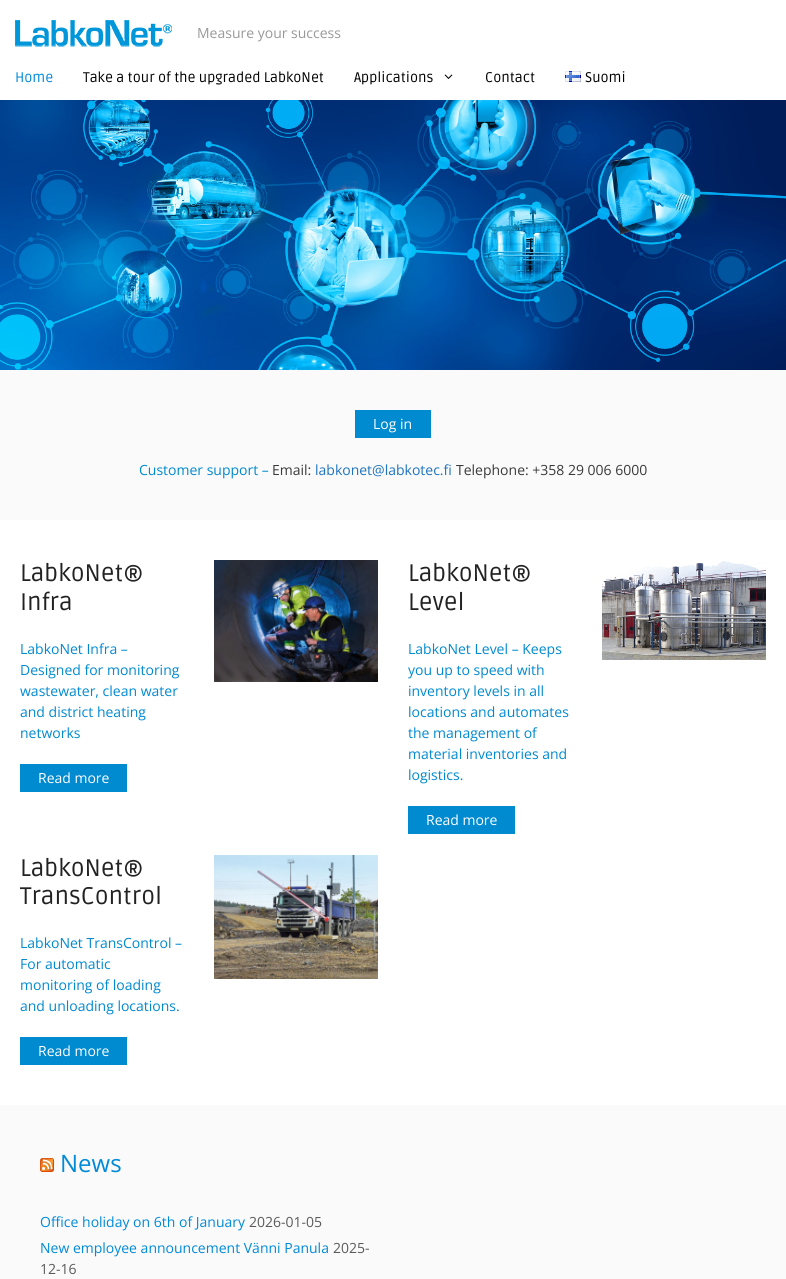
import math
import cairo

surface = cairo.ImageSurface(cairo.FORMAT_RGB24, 786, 1279)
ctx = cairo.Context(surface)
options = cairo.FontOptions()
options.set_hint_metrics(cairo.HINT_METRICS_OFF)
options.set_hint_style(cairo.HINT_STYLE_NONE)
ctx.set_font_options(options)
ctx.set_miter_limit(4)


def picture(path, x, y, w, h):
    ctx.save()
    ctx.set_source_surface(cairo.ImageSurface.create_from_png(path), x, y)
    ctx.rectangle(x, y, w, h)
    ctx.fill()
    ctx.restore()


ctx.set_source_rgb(0.98, 0.98, 0.98)
ctx.paint()
ctx.set_source_rgb(1, 1, 1)
ctx.rectangle(0, 0, 786, 100)
ctx.fill()
picture("img1.png", 15, 20, 157, 27)
ctx.select_font_face("Open Sans")
ctx.set_font_size(14)
ctx.set_source_rgb(0.6, 0.6, 0.6)
ctx.move_to(197, 38)
ctx.show_text("Measure your success")
ctx.select_font_face("Ruda")
ctx.set_source_rgb(0, 0.541, 0.847)
ctx.move_to(15, 82)
ctx.show_text("Home")
ctx.set_source_rgb(0, 0, 0)
ctx.move_to(83, 82)
ctx.show_text("Take a tour of the upgraded LabkoNet")
ctx.move_to(354, 82)
ctx.show_text("Applications")
picture("img2.png", 444, 74, 9, 5)
ctx.move_to(485, 82)
ctx.show_text("Contact")
picture("img3.png", 565, 71, 16, 11)
ctx.move_to(585, 82)
ctx.show_text("Suomi")
picture("img4.png", 0, 100, 786, 270)
ctx.set_source_rgb(0, 0.541, 0.816)
ctx.rectangle(355, 410, 76, 28)
ctx.fill()
ctx.select_font_face("Open Sans")
ctx.set_source_rgb(1, 1, 1)
ctx.move_to(373, 429)
ctx.show_text("Log in")
ctx.set_source_rgb(0, 0.541, 0.816)
ctx.move_to(139, 475)
ctx.show_text("Customer support –")
ctx.set_source_rgb(0.227, 0.227, 0.227)
ctx.move_to(272, 475)
ctx.show_text("Email:")
ctx.set_source_rgb(0.118, 0.451, 0.745)
ctx.move_to(315, 475)
ctx.show_text("labkonet@labkotec.fi")
ctx.set_source_rgb(0.227, 0.227, 0.227)
ctx.move_to(456, 475)
ctx.show_text("Telephone: +358 29 006 6000")
ctx.set_source_rgb(1, 1, 1)
ctx.rectangle(0, 520, 786, 585)
ctx.fill()
ctx.select_font_face("Ruda")
ctx.set_font_size(24)
ctx.set_source_rgb(0.133, 0.133, 0.133)
ctx.move_to(20, 581)
ctx.show_text("LabkoNet®")
ctx.move_to(20, 610)
ctx.show_text("Infra")
ctx.select_font_face("Open Sans")
ctx.set_font_size(14)
ctx.set_source_rgb(0, 0.541, 0.816)
ctx.move_to(20, 654)
ctx.show_text("LabkoNet Infra –")
ctx.move_to(20, 675)
ctx.show_text("Designed for monitoring")
ctx.move_to(20, 696)
ctx.show_text("wastewater, clean water")
ctx.move_to(20, 717)
ctx.show_text("and district heating")
ctx.move_to(20, 738)
ctx.show_text("networks")
ctx.rectangle(20, 764, 107, 28)
ctx.fill()
ctx.set_source_rgb(1, 1, 1)
ctx.move_to(38, 783)
ctx.show_text("Read more")
picture("img5.png", 214, 560, 164, 122)
ctx.select_font_face("Ruda")
ctx.set_font_size(24)
ctx.set_source_rgb(0.133, 0.133, 0.133)
ctx.move_to(408, 581)
ctx.show_text("LabkoNet®")
ctx.move_to(408, 610)
ctx.show_text("Level")
ctx.select_font_face("Open Sans")
ctx.set_font_size(14)
ctx.set_source_rgb(0, 0.541, 0.816)
ctx.move_to(408, 654)
ctx.show_text("LabkoNet Level – Keeps")
ctx.move_to(408, 675)
ctx.show_text("you up to speed with")
ctx.move_to(408, 696)
ctx.show_text("inventory levels in all")
ctx.move_to(408, 717)
ctx.show_text("locations and automates")
ctx.move_to(408, 738)
ctx.show_text("the management of")
ctx.move_to(408, 759)
ctx.show_text("material inventories and")
ctx.move_to(408, 780)
ctx.show_text("logistics.")
ctx.rectangle(408, 806, 107, 28)
ctx.fill()
ctx.set_source_rgb(1, 1, 1)
ctx.move_to(426, 825)
ctx.show_text("Read more")
picture("img6.png", 602, 561, 164, 99)
ctx.select_font_face("Ruda")
ctx.set_font_size(24)
ctx.set_source_rgb(0.133, 0.133, 0.133)
ctx.move_to(20, 876)
ctx.show_text("LabkoNet®")
ctx.move_to(20, 904)
ctx.show_text("TransControl")
ctx.select_font_face("Open Sans")
ctx.set_font_size(14)
ctx.set_source_rgb(0, 0.541, 0.816)
ctx.move_to(20, 948)
ctx.show_text("LabkoNet TransControl –")
ctx.move_to(20, 969)
ctx.show_text("For automatic")
ctx.move_to(20, 990)
ctx.show_text("monitoring of loading")
ctx.move_to(20, 1011)
ctx.show_text("and unloading locations.")
ctx.rectangle(20, 1037, 107, 28)
ctx.fill()
ctx.set_source_rgb(1, 1, 1)
ctx.move_to(38, 1056)
ctx.show_text("Read more")
picture("img7.png", 214, 855, 164, 124)
picture("img8.png", 40, 1158, 14, 14)
ctx.set_font_size(24)
ctx.set_source_rgb(0, 0.541, 0.847)
ctx.move_to(60, 1172)
ctx.show_text("News")
ctx.set_font_size(14)
ctx.move_to(40, 1227)
ctx.show_text("Office holiday on 6th of January")
ctx.set_source_rgb(0.357, 0.357, 0.357)
ctx.move_to(249, 1227)
ctx.show_text("2026-01-05")
ctx.set_source_rgb(0, 0.541, 0.847)
ctx.move_to(40, 1253)
ctx.show_text("New employee announcement Vänni Panula")
ctx.set_source_rgb(0.357, 0.357, 0.357)
ctx.move_to(333, 1253)
ctx.show_text("2025-")
ctx.move_to(40, 1274)
ctx.show_text("12-16")
surface.write_to_png("page.png")
